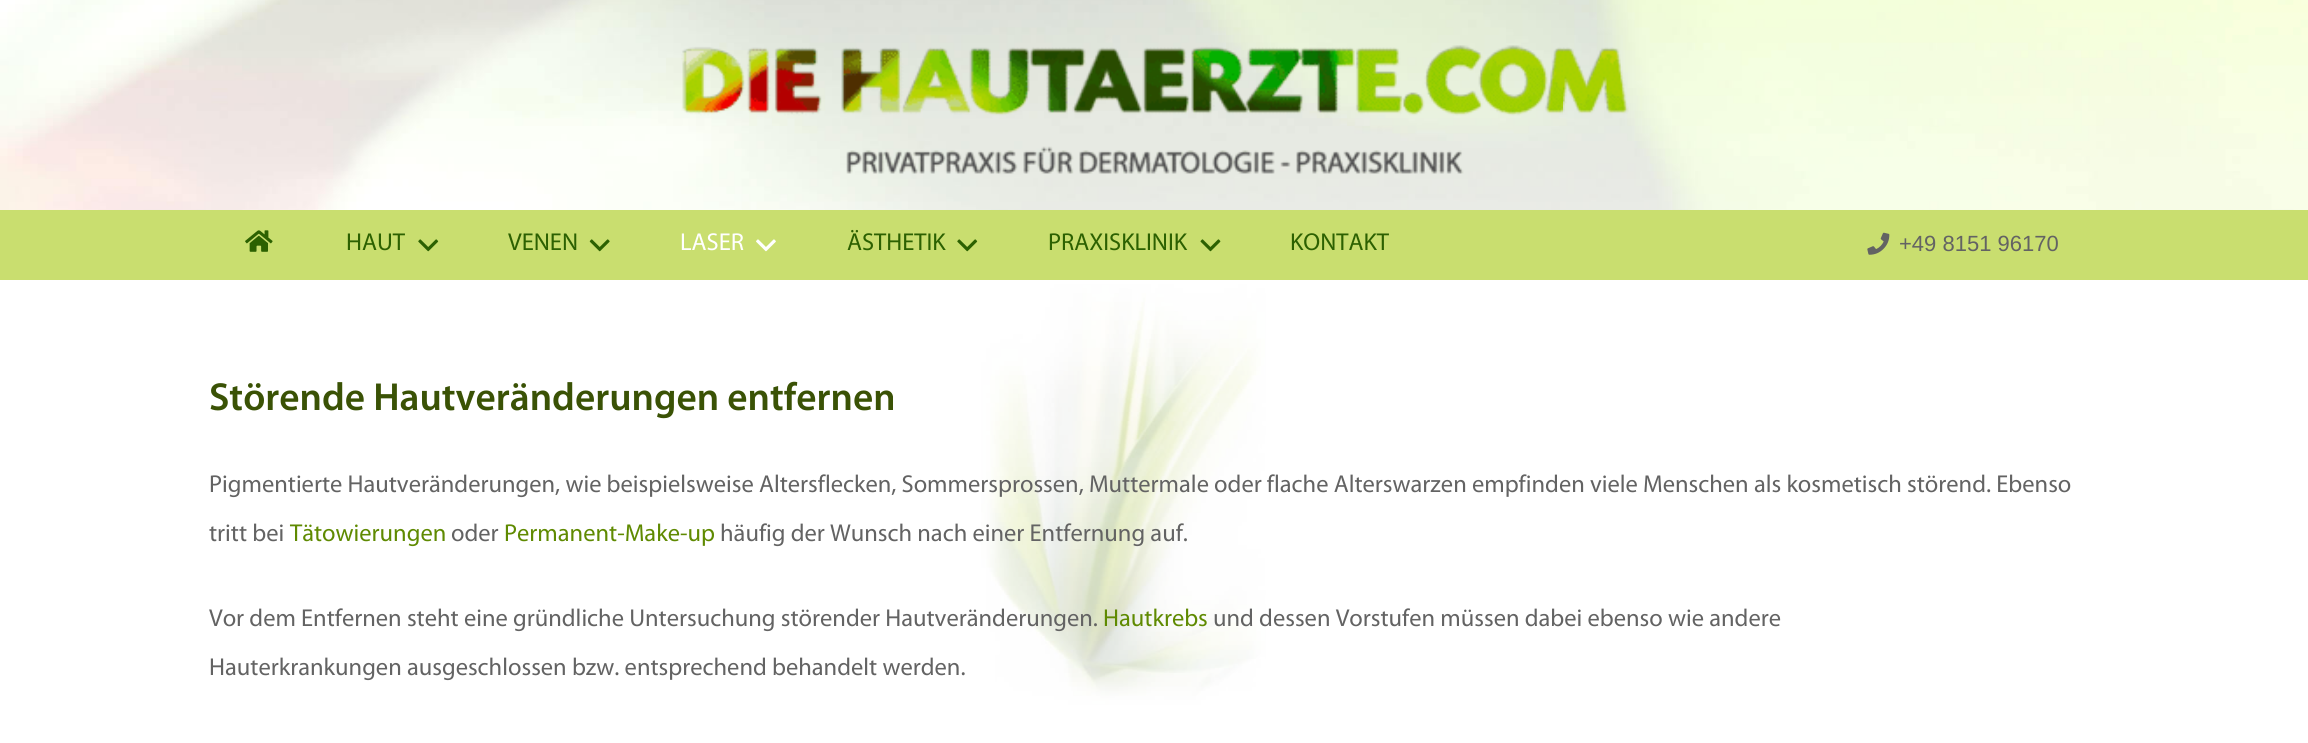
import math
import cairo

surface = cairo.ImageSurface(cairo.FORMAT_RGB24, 2308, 743)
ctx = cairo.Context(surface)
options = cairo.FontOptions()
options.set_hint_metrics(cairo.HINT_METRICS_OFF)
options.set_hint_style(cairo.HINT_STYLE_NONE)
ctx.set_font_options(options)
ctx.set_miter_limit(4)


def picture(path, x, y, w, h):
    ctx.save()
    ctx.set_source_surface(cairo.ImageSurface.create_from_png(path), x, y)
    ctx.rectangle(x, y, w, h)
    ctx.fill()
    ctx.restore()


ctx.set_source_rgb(1, 1, 1)
ctx.paint()
picture("img1.png", 0, 0, 2308, 210)
picture("img2.png", 681, 45, 948, 129)
ctx.set_source_rgb(0.788, 0.871, 0.435)
ctx.rectangle(0, 210, 2308, 70)
ctx.fill()
picture("img3.png", 245, 230, 28, 22)
ctx.select_font_face("Myriad")
ctx.set_font_size(24.5)
ctx.set_source_rgb(0.173, 0.38, 0.004)
ctx.move_to(346, 250)
ctx.show_text("HAUT")
picture("img4.png", 418, 239, 21, 13)
ctx.move_to(508, 250)
ctx.show_text("VENEN")
picture("img5.png", 589, 239, 21, 13)
ctx.set_source_rgb(1, 1, 1)
ctx.move_to(680, 250)
ctx.show_text("LASER")
picture("img6.png", 756, 239, 20, 13)
ctx.set_source_rgb(0.173, 0.38, 0.004)
ctx.move_to(847, 250)
ctx.show_text("ÄSTHETIK")
picture("img4.png", 957, 239, 21, 13)
ctx.move_to(1048, 250)
ctx.show_text("PRAXISKLINIK")
picture("img7.png", 1200, 239, 21, 13)
ctx.move_to(1290, 250)
ctx.show_text("KONTAKT")
picture("img8.png", 1867, 232, 23, 23)
ctx.select_font_face("Liberation Sans")
ctx.set_font_size(22)
ctx.set_source_rgb(0.388, 0.388, 0.388)
ctx.move_to(1899, 251)
ctx.show_text("+49 8151 96170")
picture("img9.png", 981, 284, 285, 421)
ctx.select_font_face("Myriad SemiBold")
ctx.set_font_size(39.25)
ctx.set_source_rgb(0.227, 0.322, 0.02)
ctx.move_to(209, 410)
ctx.show_text("Störende Hautveränderungen entfernen")
ctx.select_font_face("Myriad")
ctx.set_font_size(24.5)
ctx.set_source_rgb(0.388, 0.388, 0.388)
ctx.move_to(209, 492)
ctx.show_text("Pigmentierte Hautveränderungen, wie beispielsweise Altersflecken, Sommersprossen, Muttermale oder flache Alterswarzen empfinden viele Menschen als kosmetisch störend. Ebenso")
ctx.move_to(209, 541)
ctx.show_text("tritt bei")
ctx.set_source_rgb(0.373, 0.541, 0.004)
ctx.move_to(290, 541)
ctx.show_text("Tätowierungen")
ctx.set_source_rgb(0.388, 0.388, 0.388)
ctx.move_to(451, 541)
ctx.show_text("oder")
ctx.set_source_rgb(0.373, 0.541, 0.004)
ctx.move_to(504, 541)
ctx.show_text("Permanent-Make-up")
ctx.set_source_rgb(0.388, 0.388, 0.388)
ctx.move_to(720, 541)
ctx.show_text("häufig der Wunsch nach einer Entfernung auf.")
ctx.move_to(209, 626)
ctx.show_text("Vor dem Entfernen steht eine gründliche Untersuchung störender Hautveränderungen.")
ctx.set_source_rgb(0.373, 0.541, 0.004)
ctx.move_to(1103, 626)
ctx.show_text("Hautkrebs")
ctx.set_source_rgb(0.388, 0.388, 0.388)
ctx.move_to(1213, 626)
ctx.show_text("und dessen Vorstufen müssen dabei ebenso wie andere")
ctx.move_to(209, 675)
ctx.show_text("Hauterkrankungen ausgeschlossen bzw. entsprechend behandelt werden.")
surface.write_to_png("page.png")
